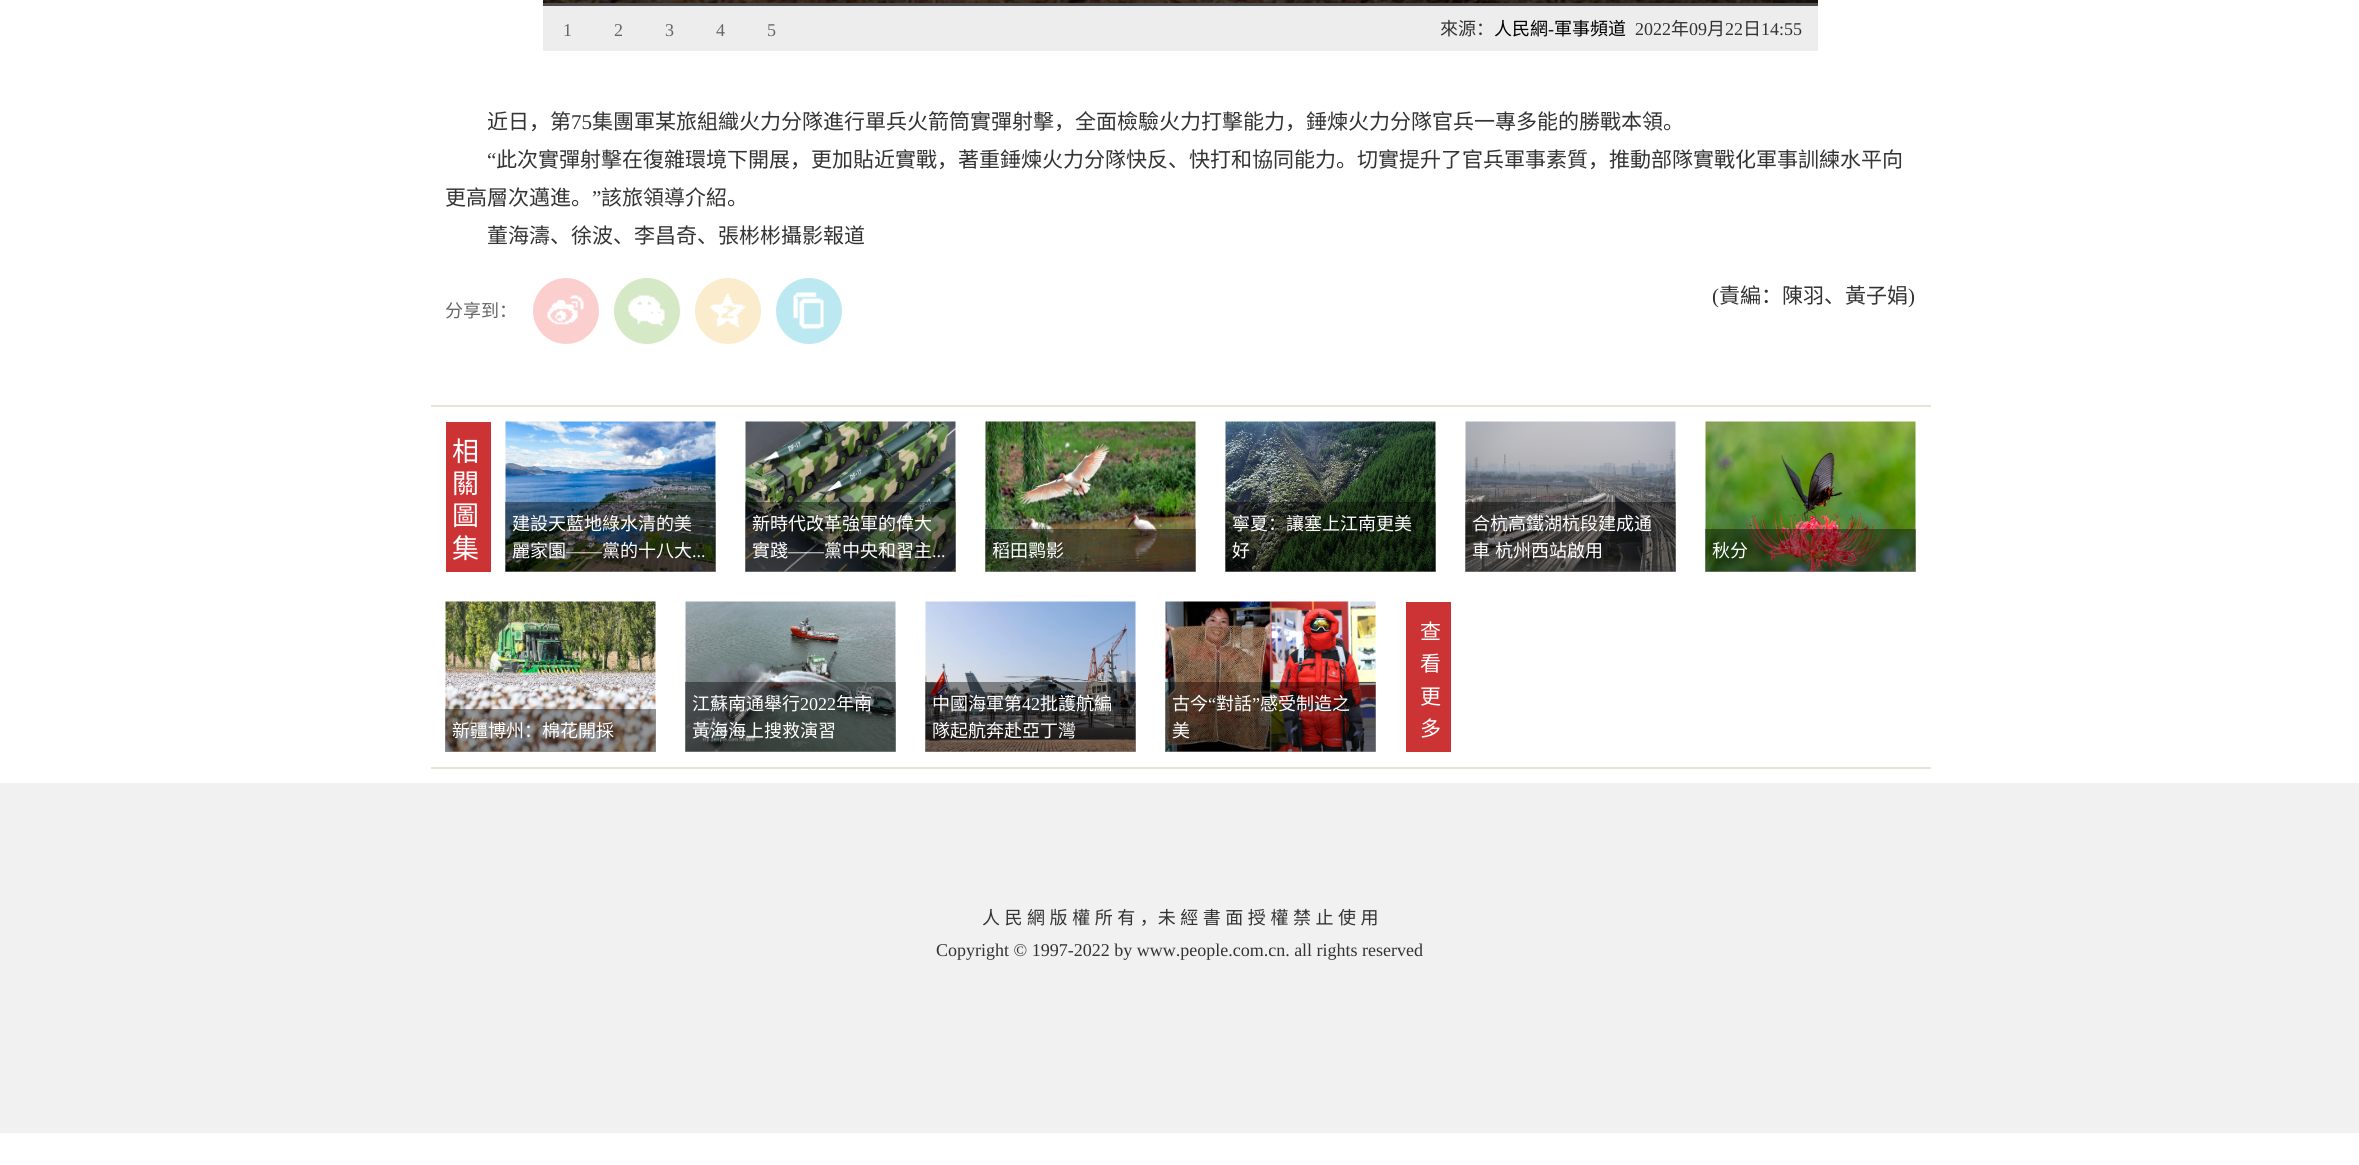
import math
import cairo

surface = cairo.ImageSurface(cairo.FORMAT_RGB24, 2359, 1165)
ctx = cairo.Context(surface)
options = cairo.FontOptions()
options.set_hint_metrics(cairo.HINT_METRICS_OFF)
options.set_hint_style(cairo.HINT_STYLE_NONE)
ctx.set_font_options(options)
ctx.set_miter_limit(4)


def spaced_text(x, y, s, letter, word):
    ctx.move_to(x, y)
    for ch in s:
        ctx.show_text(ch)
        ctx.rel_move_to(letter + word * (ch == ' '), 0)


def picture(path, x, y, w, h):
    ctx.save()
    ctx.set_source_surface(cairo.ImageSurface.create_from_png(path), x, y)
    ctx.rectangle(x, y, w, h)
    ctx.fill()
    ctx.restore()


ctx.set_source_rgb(1, 1, 1)
ctx.paint()
ctx.set_source_rgb(0.302, 0.302, 0.302)
ctx.rectangle(543, 3, 1275, 3)
ctx.fill()
picture("img1.png", 543, 0, 1275, 3)
ctx.set_source_rgba(0, 0, 0, 0.4)
ctx.rectangle(1773, 0, 45, 3)
ctx.fill()
ctx.set_source_rgb(0.929, 0.929, 0.929)
ctx.rectangle(543, 6, 1275, 45)
ctx.fill()
ctx.select_font_face("Liberation Serif")
ctx.set_font_size(18)
ctx.set_source_rgb(0.4, 0.4, 0.4)
ctx.move_to(563, 36)
ctx.show_text("1")
ctx.move_to(614, 36)
ctx.show_text("2")
ctx.move_to(665, 36)
ctx.show_text("3")
ctx.move_to(716, 36)
ctx.show_text("4")
ctx.move_to(767, 36)
ctx.show_text("5")
ctx.select_font_face("Noto Sans CJK SC")
ctx.set_source_rgb(0.2, 0.2, 0.2)
ctx.move_to(1440, 35)
ctx.show_text("來源：")
ctx.set_source_rgb(0, 0, 0)
ctx.move_to(1494, 35)
ctx.show_text("人民網")
ctx.select_font_face("Liberation Serif")
ctx.move_to(1548, 35)
ctx.show_text("-")
ctx.select_font_face("Noto Sans CJK SC")
ctx.move_to(1554, 35)
ctx.show_text("軍事頻道")
ctx.select_font_face("Liberation Serif")
ctx.set_source_rgb(0.2, 0.2, 0.2)
ctx.move_to(1635, 35)
ctx.show_text("2022")
ctx.select_font_face("Noto Sans CJK SC")
ctx.move_to(1671, 35)
ctx.show_text("年")
ctx.select_font_face("Liberation Serif")
ctx.move_to(1689, 35)
ctx.show_text("09")
ctx.select_font_face("Noto Sans CJK SC")
ctx.move_to(1707, 35)
ctx.show_text("月")
ctx.select_font_face("Liberation Serif")
ctx.move_to(1725, 35)
ctx.show_text("22")
ctx.select_font_face("Noto Sans CJK SC")
ctx.move_to(1743, 35)
ctx.show_text("日")
ctx.select_font_face("Liberation Serif")
ctx.move_to(1761, 35)
ctx.show_text("14:55")
ctx.select_font_face("Noto Sans CJK SC")
ctx.set_font_size(21)
ctx.move_to(487, 129)
ctx.show_text("近日，第")
ctx.select_font_face("Liberation Serif")
ctx.move_to(571, 129)
ctx.show_text("75")
ctx.select_font_face("Noto Sans CJK SC")
ctx.move_to(592, 129)
ctx.show_text("集團軍某旅組織火力分隊進行單兵火箭筒實彈射擊，全面檢驗火力打擊能力，錘煉火力分隊官兵一專多能的勝戰本領。")
ctx.select_font_face("Liberation Serif")
ctx.move_to(487, 167)
ctx.show_text("“")
ctx.select_font_face("Noto Sans CJK SC")
ctx.move_to(496, 167)
ctx.show_text("此次實彈射擊在復雜環境下開展，更加貼近實戰，著重錘煉火力分隊快反、快打和協同能力。切實提升了官兵軍事素質，推動部隊實戰化軍事訓練水平向")
ctx.move_to(445, 205)
ctx.show_text("更高層次邁進。")
ctx.select_font_face("Liberation Serif")
ctx.move_to(592, 205)
ctx.show_text("”")
ctx.select_font_face("Noto Sans CJK SC")
ctx.move_to(601, 205)
ctx.show_text("該旅領導介紹。")
ctx.move_to(487, 243)
ctx.show_text("董海濤、徐波、李昌奇、張彬彬攝影報道")
ctx.select_font_face("Liberation Serif")
ctx.move_to(1712, 303)
ctx.show_text("(")
ctx.select_font_face("Noto Sans CJK SC")
ctx.move_to(1719, 303)
ctx.show_text("責編：陳羽、黃子娟")
ctx.select_font_face("Liberation Serif")
ctx.move_to(1908, 303)
ctx.show_text(")")
ctx.select_font_face("Noto Sans CJK SC")
ctx.set_font_size(18)
ctx.set_source_rgb(0.4, 0.4, 0.4)
ctx.move_to(445, 317)
ctx.show_text("分享到：")
ctx.set_source_rgb(0.988, 0.812, 0.812)
ctx.new_path()
ctx.arc(566, 311, 33, 0, 2 * math.pi)
ctx.fill()
picture("img2.png", 547, 295, 37, 30)
ctx.set_source_rgb(0.839, 0.914, 0.776)
ctx.arc(647, 311, 33, 0, 2 * math.pi)
ctx.fill()
picture("img3.png", 628, 295, 37, 31)
ctx.set_source_rgb(0.98, 0.922, 0.8)
ctx.arc(728, 311, 33, 0, 2 * math.pi)
ctx.fill()
picture("img4.png", 709, 293, 37, 35)
ctx.set_source_rgb(0.737, 0.91, 0.945)
ctx.arc(809, 311, 33, 0, 2 * math.pi)
ctx.fill()
picture("img5.png", 793, 292, 31, 37)
ctx.set_source_rgb(0.914, 0.89, 0.843)
ctx.rectangle(431, 405, 1500, 2)
ctx.fill()
ctx.rectangle(431, 767, 1500, 2)
ctx.fill()
ctx.set_source_rgb(0.8, 0.2, 0.208)
ctx.rectangle(446, 422, 45, 150)
ctx.fill()
ctx.set_font_size(27)
ctx.set_source_rgb(1, 1, 1)
ctx.move_to(452, 461)
ctx.show_text("相")
ctx.move_to(452, 493)
ctx.show_text("關")
ctx.move_to(452, 525)
ctx.show_text("圖")
ctx.move_to(452, 558)
ctx.show_text("集")
picture("img6.png", 505, 421, 211, 151)
ctx.set_source_rgba(0, 0, 0, 0.4)
ctx.rectangle(505, 502, 211, 70)
ctx.fill()
ctx.set_font_size(18)
ctx.set_source_rgb(1, 1, 1)
ctx.move_to(512, 530)
ctx.show_text("建設天藍地綠水清的美")
ctx.move_to(512, 557)
ctx.show_text("麗家園")
ctx.select_font_face("Liberation Serif")
ctx.move_to(566, 557)
ctx.show_text("——")
ctx.select_font_face("Noto Sans CJK SC")
ctx.move_to(602, 557)
ctx.show_text("黨的十八大")
ctx.select_font_face("Liberation Serif")
ctx.move_to(692, 557)
ctx.show_text("...")
picture("img7.png", 745, 421, 211, 151)
ctx.set_source_rgba(0, 0, 0, 0.4)
ctx.rectangle(745, 502, 211, 70)
ctx.fill()
ctx.select_font_face("Noto Sans CJK SC")
ctx.set_source_rgb(1, 1, 1)
ctx.move_to(752, 530)
ctx.show_text("新時代改革強軍的偉大")
ctx.move_to(752, 557)
ctx.show_text("實踐")
ctx.select_font_face("Liberation Serif")
ctx.move_to(788, 557)
ctx.show_text("——")
ctx.select_font_face("Noto Sans CJK SC")
ctx.move_to(824, 557)
ctx.show_text("黨中央和習主")
ctx.select_font_face("Liberation Serif")
ctx.move_to(932, 557)
ctx.show_text("...")
picture("img8.png", 985, 421, 211, 151)
ctx.set_source_rgba(0, 0, 0, 0.4)
ctx.rectangle(985, 529, 211, 43)
ctx.fill()
ctx.select_font_face("Noto Sans CJK SC")
ctx.set_source_rgb(1, 1, 1)
ctx.move_to(992, 557)
ctx.show_text("稻田鹮影")
picture("img9.png", 1225, 421, 211, 151)
ctx.set_source_rgba(0, 0, 0, 0.4)
ctx.rectangle(1225, 502, 211, 70)
ctx.fill()
ctx.set_source_rgb(1, 1, 1)
ctx.move_to(1232, 530)
ctx.show_text("寧夏：讓塞上江南更美")
ctx.move_to(1232, 557)
ctx.show_text("好")
picture("img10.png", 1465, 421, 211, 151)
ctx.set_source_rgba(0, 0, 0, 0.4)
ctx.rectangle(1465, 502, 211, 70)
ctx.fill()
ctx.set_source_rgb(1, 1, 1)
ctx.move_to(1472, 530)
ctx.show_text("合杭高鐵湖杭段建成通")
ctx.move_to(1472, 557)
ctx.show_text("車")
ctx.move_to(1495, 557)
ctx.show_text("杭州西站啟用")
picture("img11.png", 1705, 421, 211, 151)
ctx.set_source_rgba(0, 0, 0, 0.4)
ctx.rectangle(1705, 529, 211, 43)
ctx.fill()
ctx.set_source_rgb(1, 1, 1)
ctx.move_to(1712, 557)
ctx.show_text("秋分")
picture("img12.png", 445, 601, 211, 151)
ctx.set_source_rgba(0, 0, 0, 0.4)
ctx.rectangle(445, 709, 211, 43)
ctx.fill()
ctx.set_source_rgb(1, 1, 1)
ctx.move_to(452, 737)
ctx.show_text("新疆博州：棉花開採")
picture("img13.png", 685, 601, 211, 151)
ctx.set_source_rgba(0, 0, 0, 0.4)
ctx.rectangle(685, 682, 211, 70)
ctx.fill()
ctx.set_source_rgb(1, 1, 1)
ctx.move_to(692, 710)
ctx.show_text("江蘇南通舉行")
ctx.select_font_face("Liberation Serif")
ctx.move_to(800, 710)
ctx.show_text("2022")
ctx.select_font_face("Noto Sans CJK SC")
ctx.move_to(836, 710)
ctx.show_text("年南")
ctx.move_to(692, 737)
ctx.show_text("黃海海上搜救演習")
picture("img14.png", 925, 601, 211, 151)
ctx.set_source_rgba(0, 0, 0, 0.4)
ctx.rectangle(925, 682, 211, 70)
ctx.fill()
ctx.set_source_rgb(1, 1, 1)
ctx.move_to(932, 710)
ctx.show_text("中國海軍第")
ctx.select_font_face("Liberation Serif")
ctx.move_to(1022, 710)
ctx.show_text("42")
ctx.select_font_face("Noto Sans CJK SC")
ctx.move_to(1040, 710)
ctx.show_text("批護航編")
ctx.move_to(932, 737)
ctx.show_text("隊起航奔赴亞丁灣")
picture("img15.png", 1165, 601, 211, 151)
ctx.set_source_rgba(0, 0, 0, 0.4)
ctx.rectangle(1165, 682, 211, 70)
ctx.fill()
ctx.set_source_rgb(1, 1, 1)
ctx.move_to(1172, 710)
ctx.show_text("古今")
ctx.select_font_face("Liberation Serif")
ctx.move_to(1208, 710)
ctx.show_text("“")
ctx.select_font_face("Noto Sans CJK SC")
ctx.move_to(1216, 710)
ctx.show_text("對話")
ctx.select_font_face("Liberation Serif")
ctx.move_to(1252, 710)
ctx.show_text("”")
ctx.select_font_face("Noto Sans CJK SC")
ctx.move_to(1260, 710)
ctx.show_text("感受制造之")
ctx.move_to(1172, 737)
ctx.show_text("美")
ctx.set_source_rgb(0.8, 0.2, 0.208)
ctx.rectangle(1406, 602, 45, 150)
ctx.fill()
ctx.set_font_size(21)
ctx.set_source_rgb(1, 1, 1)
ctx.move_to(1420, 639)
ctx.show_text("查")
ctx.move_to(1420, 671)
ctx.show_text("看")
ctx.move_to(1420, 704)
ctx.show_text("更")
ctx.move_to(1420, 736)
ctx.show_text("多")
ctx.set_source_rgb(0.945, 0.945, 0.945)
ctx.rectangle(0, 783, 2359, 350)
ctx.fill()
ctx.set_font_size(18)
ctx.set_source_rgb(0.2, 0.2, 0.2)
spaced_text(982, 924, "人 民 網 版 權 所 有 ，未 經 書 面 授 權 禁 止 使 用", 0, 0.5)
ctx.select_font_face("Liberation Serif")
ctx.move_to(936, 956)
ctx.show_text("Copyright © 1997-2022 by www.people.com.cn. all rights reserved")
surface.write_to_png("page.png")
